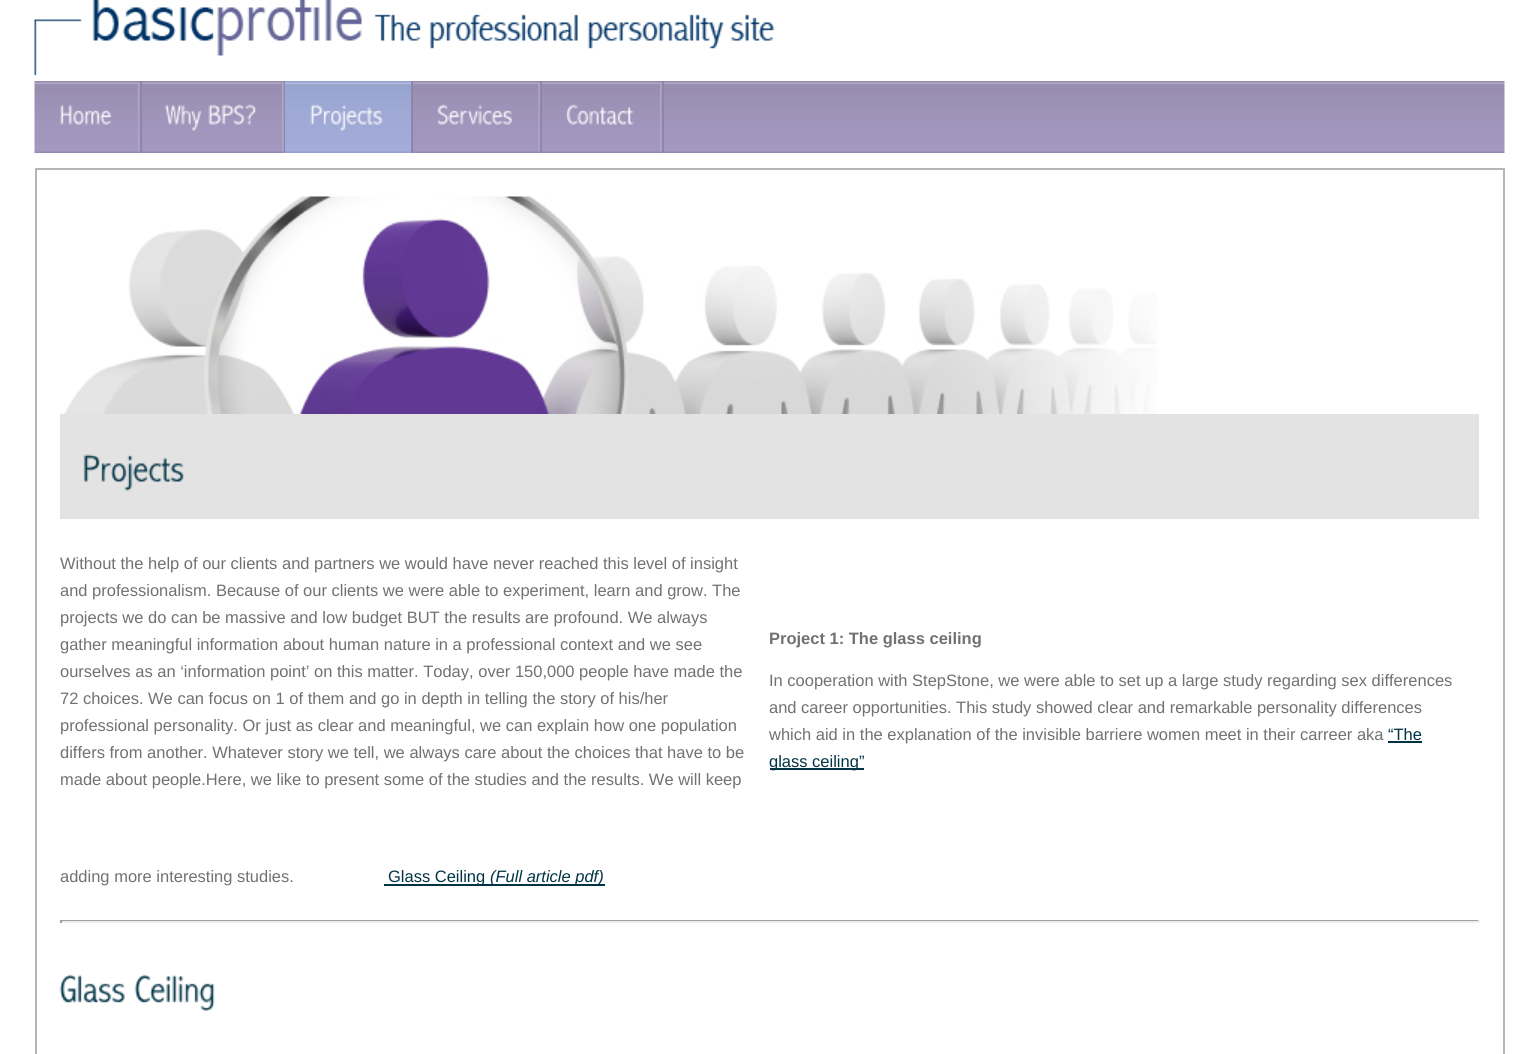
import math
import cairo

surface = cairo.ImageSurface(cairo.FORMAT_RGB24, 1539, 1054)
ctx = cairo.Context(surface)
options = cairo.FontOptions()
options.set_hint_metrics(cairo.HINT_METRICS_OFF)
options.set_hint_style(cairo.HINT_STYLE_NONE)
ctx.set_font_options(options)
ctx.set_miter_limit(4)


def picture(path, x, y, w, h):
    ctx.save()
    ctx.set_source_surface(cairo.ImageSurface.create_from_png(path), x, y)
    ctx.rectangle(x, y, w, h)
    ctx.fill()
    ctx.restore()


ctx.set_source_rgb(1, 1, 1)
ctx.paint()
picture("img1.png", 34, 0, 741, 76)
picture("img2.png", 34, 81, 1471, 72)
picture("img3.png", 138, 82, 2, 70)
ctx.set_source_rgb(0.561, 0.518, 0.667)
ctx.rectangle(140, 81, 2, 72)
ctx.fill()
picture("img4.png", 60, 104, 52, 21)
picture("img3.png", 282, 82, 2, 70)
ctx.rectangle(284, 81, 1, 72)
ctx.fill()
picture("img5.png", 165, 104, 37, 27)
picture("img6.png", 208, 104, 48, 21)
picture("img7.png", 285, 81, 126, 72)
ctx.rectangle(411, 81, 2, 72)
ctx.fill()
picture("img8.png", 310, 104, 73, 27)
picture("img9.png", 538, 82, 2, 70)
ctx.rectangle(540, 81, 2, 72)
ctx.fill()
picture("img10.png", 437, 104, 75, 21)
picture("img3.png", 660, 82, 2, 70)
ctx.rectangle(662, 81, 2, 72)
ctx.fill()
picture("img11.png", 566, 104, 68, 21)
ctx.set_source_rgb(0.71, 0.71, 0.71)
ctx.rectangle(35, 168, 1470, 2)
ctx.fill()
ctx.rectangle(1503, 168, 2, 886)
ctx.fill()
ctx.rectangle(35, 168, 2, 886)
ctx.fill()
picture("img12.png", 64, 196, 1093, 218)
ctx.set_source_rgb(0.89, 0.89, 0.89)
ctx.rectangle(60, 414, 1419, 105)
ctx.fill()
picture("img13.png", 83, 454, 101, 37)
ctx.select_font_face("Liberation Sans")
ctx.set_font_size(16.5)
ctx.set_source_rgb(0.443, 0.443, 0.443)
ctx.move_to(60, 569)
ctx.show_text("Without the help of our clients and partners we would have never reached this level of insight")
ctx.move_to(60, 596)
ctx.show_text("and professionalism. Because of our clients we were able to experiment, learn and grow. The")
ctx.move_to(60, 623)
ctx.show_text("projects we do can be massive and low budget BUT the results are profound. We always")
ctx.move_to(60, 650)
ctx.show_text("gather meaningful information about human nature in a professional context and we see")
ctx.move_to(60, 677)
ctx.show_text("ourselves as an ‘information point’ on this matter. Today, over 150,000 people have made the")
ctx.move_to(60, 704)
ctx.show_text("72 choices. We can focus on 1 of them and go in depth in telling the story of his/her")
ctx.move_to(60, 731)
ctx.show_text("professional personality. Or just as clear and meaningful, we can explain how one population")
ctx.move_to(60, 758)
ctx.show_text("differs from another. Whatever story we tell, we always care about the choices that have to be")
ctx.move_to(60, 785)
ctx.show_text("made about people.Here, we like to present some of the studies and the results. We will keep")
ctx.move_to(60, 882)
ctx.show_text("adding more interesting studies.")
ctx.set_source_rgb(0, 0.2, 0.267)
ctx.rectangle(384, 884, 221, 2)
ctx.fill()
ctx.move_to(388, 882)
ctx.show_text("Glass Ceiling")
ctx.select_font_face("Liberation Sans", cairo.FONT_SLANT_ITALIC)
ctx.move_to(490, 882)
ctx.show_text("(Full article pdf)")
ctx.select_font_face("Liberation Sans", cairo.FONT_SLANT_NORMAL, cairo.FONT_WEIGHT_BOLD)
ctx.set_source_rgb(0.443, 0.443, 0.443)
ctx.move_to(769, 644)
ctx.show_text("Project 1: The glass ceiling")
ctx.select_font_face("Liberation Sans")
ctx.move_to(769, 686)
ctx.show_text("In cooperation with StepStone, we were able to set up a large study regarding sex differences")
ctx.move_to(769, 713)
ctx.show_text("and career opportunities. This study showed clear and remarkable personality differences")
ctx.move_to(769, 740)
ctx.show_text("which aid in the explanation of the invisible barriere women meet in their carreer aka")
ctx.set_source_rgb(0, 0.2, 0.267)
ctx.move_to(1388, 740)
ctx.show_text("“The")
ctx.rectangle(1388, 741, 34, 2)
ctx.fill()
ctx.rectangle(770, 768, 94, 2)
ctx.fill()
ctx.move_to(769, 767)
ctx.show_text("glass ceiling”")
ctx.set_source_rgb(0.624, 0.624, 0.624)
ctx.rectangle(60, 920, 1419, 1)
ctx.fill()
ctx.set_source_rgb(0.933, 0.933, 0.933)
ctx.rectangle(1478, 920, 2, 3)
ctx.fill()
ctx.rectangle(60, 921, 1419, 2)
ctx.fill()
ctx.set_source_rgb(0.624, 0.624, 0.624)
ctx.rectangle(60, 920, 2, 3)
ctx.fill()
picture("img14.png", 59, 974, 66, 29)
picture("img15.png", 134, 974, 81, 37)
surface.write_to_png("page.png")
